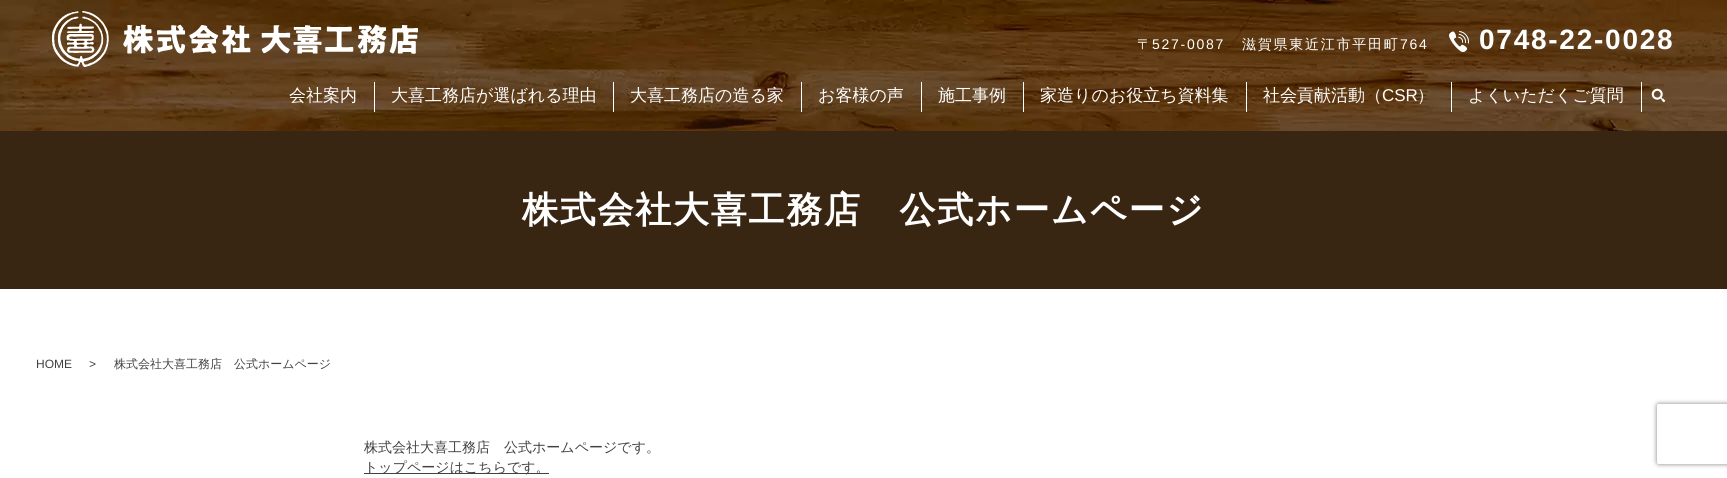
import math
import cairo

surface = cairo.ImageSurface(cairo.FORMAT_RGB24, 1727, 478)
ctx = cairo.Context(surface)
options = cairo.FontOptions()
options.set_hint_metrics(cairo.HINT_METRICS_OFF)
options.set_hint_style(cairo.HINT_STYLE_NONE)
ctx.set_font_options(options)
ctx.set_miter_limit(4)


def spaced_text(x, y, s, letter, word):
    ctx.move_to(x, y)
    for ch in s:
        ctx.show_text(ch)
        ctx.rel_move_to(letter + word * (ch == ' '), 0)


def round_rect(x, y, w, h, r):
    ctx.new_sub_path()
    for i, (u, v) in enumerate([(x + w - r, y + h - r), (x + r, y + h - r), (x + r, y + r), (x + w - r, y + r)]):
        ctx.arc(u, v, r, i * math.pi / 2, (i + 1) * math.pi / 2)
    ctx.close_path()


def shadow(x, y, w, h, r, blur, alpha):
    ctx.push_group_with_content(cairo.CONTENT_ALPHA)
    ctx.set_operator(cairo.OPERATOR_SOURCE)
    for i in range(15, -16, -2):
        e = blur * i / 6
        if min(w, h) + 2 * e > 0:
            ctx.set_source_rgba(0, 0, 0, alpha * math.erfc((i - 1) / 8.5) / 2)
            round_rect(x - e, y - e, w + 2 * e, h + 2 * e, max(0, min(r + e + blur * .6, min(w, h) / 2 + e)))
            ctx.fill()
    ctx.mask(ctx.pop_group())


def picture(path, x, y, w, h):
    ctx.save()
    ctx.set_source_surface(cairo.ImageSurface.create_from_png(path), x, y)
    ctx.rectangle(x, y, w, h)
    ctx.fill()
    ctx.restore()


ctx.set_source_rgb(1, 1, 1)
ctx.paint()
picture("img1.png", 0, 0, 1727, 131)
picture("img2.png", 52, 11, 366, 56)
ctx.select_font_face("WenQuanYi Zen Hei Medium")
ctx.set_font_size(14)
ctx.set_source_rgb(1, 1, 1)
spaced_text(1137, 49, "〒", 1.75, 0)
ctx.select_font_face("Liberation Sans")
spaced_text(1152, 49, "527-0087", 1.75, 0)
ctx.select_font_face("WenQuanYi Zen Hei Medium")
spaced_text(1242, 49, "滋賀県東近江市平田町", 1.75, 0)
ctx.select_font_face("Liberation Sans")
spaced_text(1400, 49, "764", 1.75, 0)
picture("img3.png", 1449, 31, 20, 21)
ctx.select_font_face("Liberation Sans", cairo.FONT_SLANT_NORMAL, cairo.FONT_WEIGHT_BOLD)
ctx.set_font_size(28)
spaced_text(1479, 49, "0748-22-0028", 1.75, 0)
ctx.select_font_face("WenQuanYi Zen Hei Medium")
ctx.set_font_size(17)
ctx.move_to(289, 101)
ctx.show_text("会社案内")
ctx.rectangle(374, 82, 1, 30)
ctx.fill()
ctx.move_to(391, 101)
ctx.show_text("大喜工務店が選ばれる理由")
ctx.rectangle(613, 82, 1, 30)
ctx.fill()
ctx.move_to(630, 101)
ctx.show_text("大喜工務店の造る家")
ctx.rectangle(801, 82, 1, 30)
ctx.fill()
ctx.move_to(818, 101)
ctx.show_text("お客様の声")
ctx.rectangle(921, 82, 1, 30)
ctx.fill()
ctx.move_to(938, 101)
ctx.show_text("施工事例")
ctx.rectangle(1023, 82, 1, 30)
ctx.fill()
ctx.move_to(1040, 101)
ctx.show_text("家造りのお役立ち資料集")
ctx.rectangle(1246, 82, 1, 30)
ctx.fill()
ctx.move_to(1263, 101)
ctx.show_text("社会貢献活動（")
ctx.select_font_face("Liberation Sans")
ctx.move_to(1382, 101)
ctx.show_text("CSR")
ctx.select_font_face("WenQuanYi Zen Hei Medium")
ctx.move_to(1417, 101)
ctx.show_text("）")
ctx.rectangle(1451, 82, 1, 30)
ctx.fill()
ctx.move_to(1468, 101)
ctx.show_text("よくいただくご質問")
ctx.rectangle(1641, 82, 1, 30)
ctx.fill()
picture("img4.png", 1651, 88, 15, 15)
ctx.set_source_rgb(0.22, 0.149, 0.075)
ctx.rectangle(0, 131, 1727, 158)
ctx.fill()
ctx.select_font_face("WenQuanYi Zen Hei", cairo.FONT_SLANT_NORMAL, cairo.FONT_WEIGHT_BOLD)
ctx.set_font_size(36)
ctx.set_source_rgb(1, 1, 1)
spaced_text(522, 222, "株式会社大喜工務店　公式ホームページ", 1.75, 0)
ctx.select_font_face("Liberation Sans")
ctx.set_font_size(12)
ctx.set_source_rgb(0.259, 0.255, 0.255)
ctx.move_to(36, 368)
ctx.show_text("HOME")
ctx.move_to(89, 368)
ctx.show_text(">")
ctx.select_font_face("WenQuanYi Zen Hei Medium")
ctx.move_to(114, 368)
ctx.show_text("株式会社大喜工務店　公式ホームページ")
ctx.set_font_size(14)
ctx.move_to(364, 452)
ctx.show_text("株式会社大喜工務店　公式ホームページです。")
ctx.rectangle(364, 473, 185, 1)
ctx.fill()
ctx.move_to(364, 472)
ctx.show_text("トップページはこちらです。")
ctx.save()
ctx.set_fill_rule(cairo.FILL_RULE_EVEN_ODD)
ctx.new_path()
ctx.move_to(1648, 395)
ctx.line_to(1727, 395)
ctx.line_to(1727, 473)
ctx.line_to(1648, 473)
ctx.close_path()
ctx.move_to(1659, 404)
ctx.line_to(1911, 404)
ctx.curve_to(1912, 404, 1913, 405, 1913, 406)
ctx.line_to(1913, 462)
ctx.curve_to(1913, 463, 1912, 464, 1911, 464)
ctx.line_to(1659, 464)
ctx.curve_to(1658, 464, 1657, 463, 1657, 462)
ctx.line_to(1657, 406)
ctx.curve_to(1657, 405, 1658, 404, 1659, 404)
ctx.close_path()
ctx.clip()
ctx.set_source_rgb(0.502, 0.502, 0.502)
shadow(1657, 404, 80, 60, 2, 2.5, 1)
ctx.restore()
surface.write_to_png("page.png")
